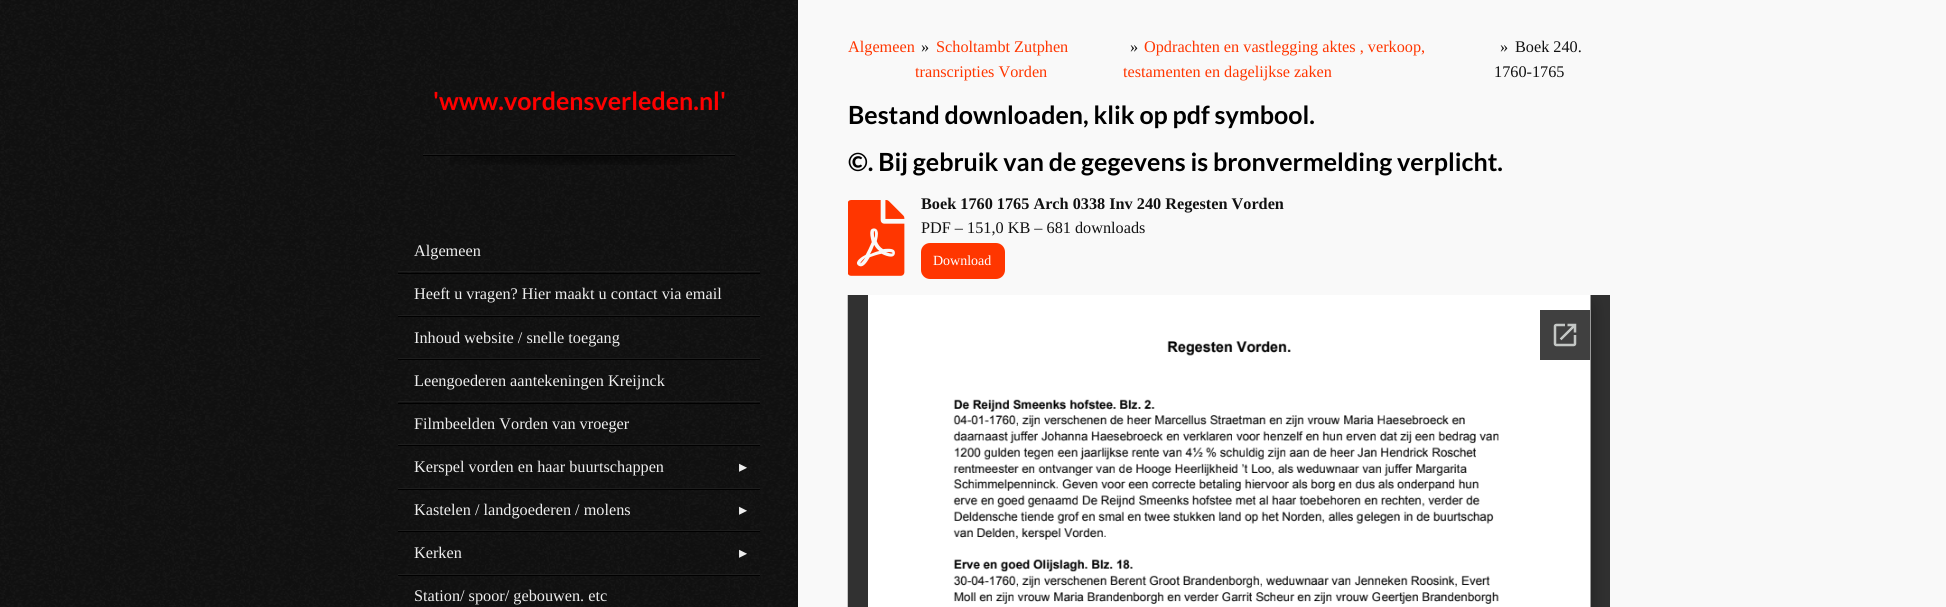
import math
import cairo

surface = cairo.ImageSurface(cairo.FORMAT_RGB24, 1946, 607)
ctx = cairo.Context(surface)
options = cairo.FontOptions()
options.set_hint_metrics(cairo.HINT_METRICS_OFF)
options.set_hint_style(cairo.HINT_STYLE_NONE)
ctx.set_font_options(options)
ctx.set_miter_limit(4)


def round_rect(x, y, w, h, r):
    ctx.new_sub_path()
    for i, (u, v) in enumerate([(x + w - r, y + h - r), (x + r, y + h - r), (x + r, y + r), (x + w - r, y + r)]):
        ctx.arc(u, v, r, i * math.pi / 2, (i + 1) * math.pi / 2)
    ctx.close_path()


def picture(path, x, y, w, h):
    ctx.save()
    ctx.set_source_surface(cairo.ImageSurface.create_from_png(path), x, y)
    ctx.rectangle(x, y, w, h)
    ctx.fill()
    ctx.restore()


ctx.set_source_rgb(0.973, 0.973, 0.973)
ctx.paint()
ctx.set_source_rgb(0.067, 0.067, 0.067)
ctx.rectangle(0, 0, 798, 607)
ctx.fill()
picture("img1.png", 0, 0, 797, 607)
ctx.select_font_face("Lato", cairo.FONT_SLANT_NORMAL, cairo.FONT_WEIGHT_BOLD)
ctx.set_font_size(25)
ctx.set_source_rgb(1, 0, 0)
ctx.move_to(433, 110)
ctx.show_text("'www.vordensverleden.nl'")
picture("img2.png", 450, 156, 253, 9)
ctx.set_source_rgb(0, 0, 0)
ctx.rectangle(423, 155, 312, 1)
ctx.fill()
ctx.set_source_rgb(0.118, 0.118, 0.118)
ctx.rectangle(423, 154, 312, 1)
ctx.fill()
ctx.rectangle(398, 271, 362, 1)
ctx.fill()
ctx.select_font_face("Liberation Serif")
ctx.set_font_size(16.25)
ctx.set_source_rgb(0.933, 0.933, 0.933)
ctx.move_to(414, 256)
ctx.show_text("Algemeen")
ctx.set_source_rgb(0, 0, 0)
ctx.rectangle(398, 273, 362, 1)
ctx.fill()
ctx.set_source_rgb(0.118, 0.118, 0.118)
ctx.rectangle(398, 315, 362, 1)
ctx.fill()
ctx.set_source_rgb(0.933, 0.933, 0.933)
ctx.move_to(414, 299)
ctx.show_text("Heeft u vragen? Hier maakt u contact via email")
ctx.set_source_rgb(0, 0, 0)
ctx.rectangle(398, 316, 362, 1)
ctx.fill()
ctx.set_source_rgb(0.118, 0.118, 0.118)
ctx.rectangle(398, 358, 362, 1)
ctx.fill()
ctx.set_source_rgb(0.933, 0.933, 0.933)
ctx.move_to(414, 343)
ctx.show_text("Inhoud website / snelle toegang")
ctx.set_source_rgb(0, 0, 0)
ctx.rectangle(398, 359, 362, 1)
ctx.fill()
ctx.set_source_rgb(0.118, 0.118, 0.118)
ctx.rectangle(398, 401, 362, 1)
ctx.fill()
ctx.set_source_rgb(0.933, 0.933, 0.933)
ctx.move_to(414, 386)
ctx.show_text("Leengoederen aantekeningen Kreijnck")
ctx.set_source_rgb(0, 0, 0)
ctx.rectangle(398, 403, 362, 1)
ctx.fill()
ctx.set_source_rgb(0.118, 0.118, 0.118)
ctx.rectangle(398, 444, 362, 1)
ctx.fill()
ctx.set_source_rgb(0.933, 0.933, 0.933)
ctx.move_to(414, 429)
ctx.show_text("Filmbeelden Vorden van vroeger")
ctx.set_source_rgb(0, 0, 0)
ctx.rectangle(398, 445, 362, 1)
ctx.fill()
ctx.set_source_rgb(0.118, 0.118, 0.118)
ctx.rectangle(398, 488, 362, 1)
ctx.fill()
ctx.set_source_rgb(0.933, 0.933, 0.933)
ctx.move_to(414, 472)
ctx.show_text("Kerspel vorden en haar buurtschappen")
ctx.select_font_face("DejaVu Sans")
ctx.move_to(739, 472)
ctx.show_text("▸")
ctx.set_source_rgb(0, 0, 0)
ctx.rectangle(398, 489, 362, 1)
ctx.fill()
ctx.set_source_rgb(0.118, 0.118, 0.118)
ctx.rectangle(398, 530, 362, 1)
ctx.fill()
ctx.select_font_face("Liberation Serif")
ctx.set_source_rgb(0.933, 0.933, 0.933)
ctx.move_to(414, 515)
ctx.show_text("Kastelen / landgoederen / molens")
ctx.select_font_face("DejaVu Sans")
ctx.move_to(739, 515)
ctx.show_text("▸")
ctx.set_source_rgb(0, 0, 0)
ctx.rectangle(398, 531, 362, 1)
ctx.fill()
ctx.set_source_rgb(0.118, 0.118, 0.118)
ctx.rectangle(398, 574, 362, 1)
ctx.fill()
ctx.select_font_face("Liberation Serif")
ctx.set_source_rgb(0.933, 0.933, 0.933)
ctx.move_to(414, 558)
ctx.show_text("Kerken")
ctx.select_font_face("DejaVu Sans")
ctx.move_to(739, 558)
ctx.show_text("▸")
ctx.set_source_rgb(0, 0, 0)
ctx.rectangle(398, 575, 362, 1)
ctx.fill()
ctx.select_font_face("Liberation Serif")
ctx.set_source_rgb(0.933, 0.933, 0.933)
ctx.move_to(414, 601)
ctx.show_text("Station/ spoor/ gebouwen. etc")
ctx.set_source_rgb(1, 0.212, 0)
ctx.move_to(848, 52)
ctx.show_text("Algemeen")
ctx.set_source_rgb(0.067, 0.067, 0.067)
ctx.move_to(921, 52)
ctx.show_text("»")
ctx.set_source_rgb(1, 0.212, 0)
ctx.move_to(936, 52)
ctx.show_text("Scholtambt Zutphen")
ctx.move_to(915, 77)
ctx.show_text("transcripties Vorden")
ctx.set_source_rgb(0.067, 0.067, 0.067)
ctx.move_to(1130, 52)
ctx.show_text("»")
ctx.set_source_rgb(1, 0.212, 0)
ctx.move_to(1144, 52)
ctx.show_text("Opdrachten en vastlegging aktes , verkoop,")
ctx.move_to(1123, 77)
ctx.show_text("testamenten en dagelijkse zaken")
ctx.set_source_rgb(0.067, 0.067, 0.067)
ctx.move_to(1500, 52)
ctx.show_text("»")
ctx.move_to(1515, 52)
ctx.show_text("Boek 240.")
ctx.move_to(1494, 77)
ctx.show_text("1760-1765")
ctx.select_font_face("Lato", cairo.FONT_SLANT_NORMAL, cairo.FONT_WEIGHT_BOLD)
ctx.set_font_size(25)
ctx.set_source_rgb(0, 0, 0)
ctx.move_to(848, 124)
ctx.show_text("Bestand downloaden, klik op pdf symbool.")
ctx.move_to(848, 171)
ctx.show_text("©. Bij gebruik van de gegevens is bronvermelding verplicht.")
picture("img3.png", 848, 200, 57, 76)
ctx.select_font_face("Liberation Serif", cairo.FONT_SLANT_NORMAL, cairo.FONT_WEIGHT_BOLD)
ctx.set_font_size(16.25)
ctx.set_source_rgb(0.067, 0.067, 0.067)
ctx.move_to(921, 209)
ctx.show_text("Boek 1760 1765 Arch 0338 Inv 240 Regesten Vorden")
ctx.select_font_face("Liberation Serif")
ctx.move_to(921, 233)
ctx.show_text("PDF – 151,0 KB – 681 downloads")
ctx.set_source_rgb(1, 0.212, 0)
round_rect(921, 243, 84, 36, 9)
ctx.fill()
ctx.set_font_size(14)
ctx.set_source_rgb(1, 1, 1)
ctx.move_to(933, 265)
ctx.show_text("Download")
picture("img4.png", 847, 295, 763, 312)
surface.write_to_png("page.png")
